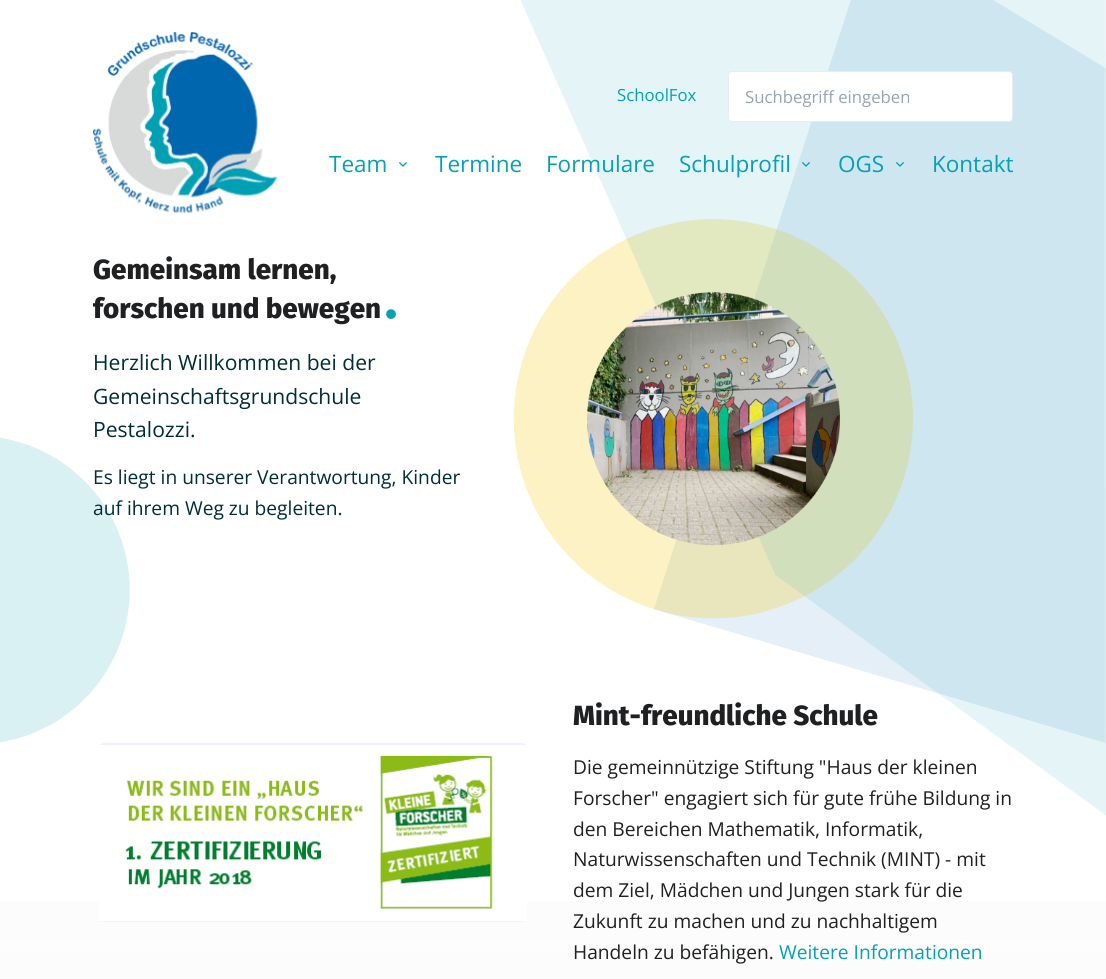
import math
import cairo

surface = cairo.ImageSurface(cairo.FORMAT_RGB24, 1106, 979)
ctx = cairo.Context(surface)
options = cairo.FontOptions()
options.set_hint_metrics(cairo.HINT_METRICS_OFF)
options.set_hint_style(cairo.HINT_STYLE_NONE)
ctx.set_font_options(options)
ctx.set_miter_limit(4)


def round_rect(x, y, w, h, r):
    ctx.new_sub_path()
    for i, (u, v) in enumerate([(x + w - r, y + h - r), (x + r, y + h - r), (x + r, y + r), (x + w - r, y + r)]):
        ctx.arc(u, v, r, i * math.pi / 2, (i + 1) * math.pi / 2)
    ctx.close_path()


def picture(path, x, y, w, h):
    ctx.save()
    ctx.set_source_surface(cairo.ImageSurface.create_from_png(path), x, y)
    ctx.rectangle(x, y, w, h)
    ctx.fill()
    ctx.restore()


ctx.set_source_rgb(1, 1, 1)
ctx.paint()
picture("img4.png", 0, 0, 1106, 815)
picture("img1.png", 93, 32, 184, 182)
ctx.select_font_face("Open Sans")
ctx.set_font_size(16.75)
ctx.set_source_rgb(0.016, 0.627, 0.71)
ctx.move_to(617, 101)
ctx.show_text("SchoolFox")
ctx.set_source_rgb(1, 1, 1)
round_rect(728.5, 71.5, 284, 50, 3.5)
ctx.fill_preserve()
ctx.set_source_rgb(0.906, 0.918, 0.953)
ctx.set_line_width(1)
ctx.stroke()
ctx.set_source_rgb(0.592, 0.643, 0.686)
ctx.move_to(745, 103)
ctx.show_text("Suchbegriff eingeben")
ctx.set_font_size(22.5)
ctx.set_source_rgb(0.016, 0.627, 0.71)
ctx.move_to(329, 172)
ctx.show_text("Team")
picture("img2.png", 399, 162, 8, 5)
ctx.move_to(435, 172)
ctx.show_text("Termine")
ctx.move_to(546, 172)
ctx.show_text("Formulare")
ctx.move_to(679, 172)
ctx.show_text("Schulprofil")
picture("img3.png", 802, 162, 8, 5)
ctx.move_to(838, 172)
ctx.show_text("OGS")
picture("img3.png", 896, 162, 8, 5)
ctx.move_to(932, 172)
ctx.show_text("Kontakt")
ctx.select_font_face("Fira Sans ExtraBold")
ctx.set_font_size(27.75)
ctx.set_source_rgb(0.118, 0.125, 0.133)
ctx.move_to(93, 279)
ctx.show_text("Gemeinsam lernen,")
ctx.move_to(93, 318)
ctx.show_text("forschen und bewegen")
ctx.set_font_size(50)
ctx.set_source_rgb(0.016, 0.627, 0.71)
ctx.move_to(385, 318)
ctx.show_text(".")
ctx.select_font_face("Open Sans")
ctx.set_font_size(21.1)
ctx.set_source_rgb(0, 0.18, 0.208)
ctx.move_to(93, 370)
ctx.show_text("Herzlich Willkommen bei der")
ctx.move_to(93, 404)
ctx.show_text("Gemeinschaftsgrundschule")
ctx.move_to(93, 437)
ctx.show_text("Pestalozzi.")
ctx.set_font_size(19.2)
ctx.move_to(93, 484)
ctx.show_text("Es liegt in unserer Verantwortung, Kinder")
ctx.move_to(93, 515)
ctx.show_text("auf ihrem Weg zu begleiten.")
gradient = cairo.LinearGradient(553, 658, 553, 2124)
gradient.add_color_stop_rgba(0, 0.549, 0.549, 0.549, 0)
gradient.add_color_stop_rgba(1, 0.549, 0.549, 0.549, 0.13)
ctx.set_source(gradient)
ctx.rectangle(0, 901, 1106, 78)
ctx.fill()
picture("img5.png", 99, 743, 428, 179)
ctx.select_font_face("Fira Sans ExtraBold")
ctx.set_font_size(27.75)
ctx.set_source_rgb(0.118, 0.125, 0.133)
ctx.move_to(573, 725)
ctx.show_text("Mint-freundliche Schule")
ctx.select_font_face("Open Sans")
ctx.set_font_size(19.2)
ctx.move_to(573, 774)
ctx.show_text("Die gemeinnützige Stiftung \"Haus der kleinen")
ctx.move_to(573, 805)
ctx.show_text("Forscher\" engagiert sich für gute frühe Bildung in")
ctx.move_to(573, 836)
ctx.show_text("den Bereichen Mathematik, Informatik,")
ctx.move_to(573, 866)
ctx.show_text("Naturwissenschaften und Technik (MINT) - mit")
ctx.move_to(573, 897)
ctx.show_text("dem Ziel, Mädchen und Jungen stark für die")
ctx.move_to(573, 928)
ctx.show_text("Zukunft zu machen und zu nachhaltigem")
ctx.move_to(573, 959)
ctx.show_text("Handeln zu befähigen.")
ctx.set_source_rgb(0.016, 0.627, 0.71)
ctx.move_to(779, 959)
ctx.show_text("Weitere Informationen")
surface.write_to_png("page.png")
